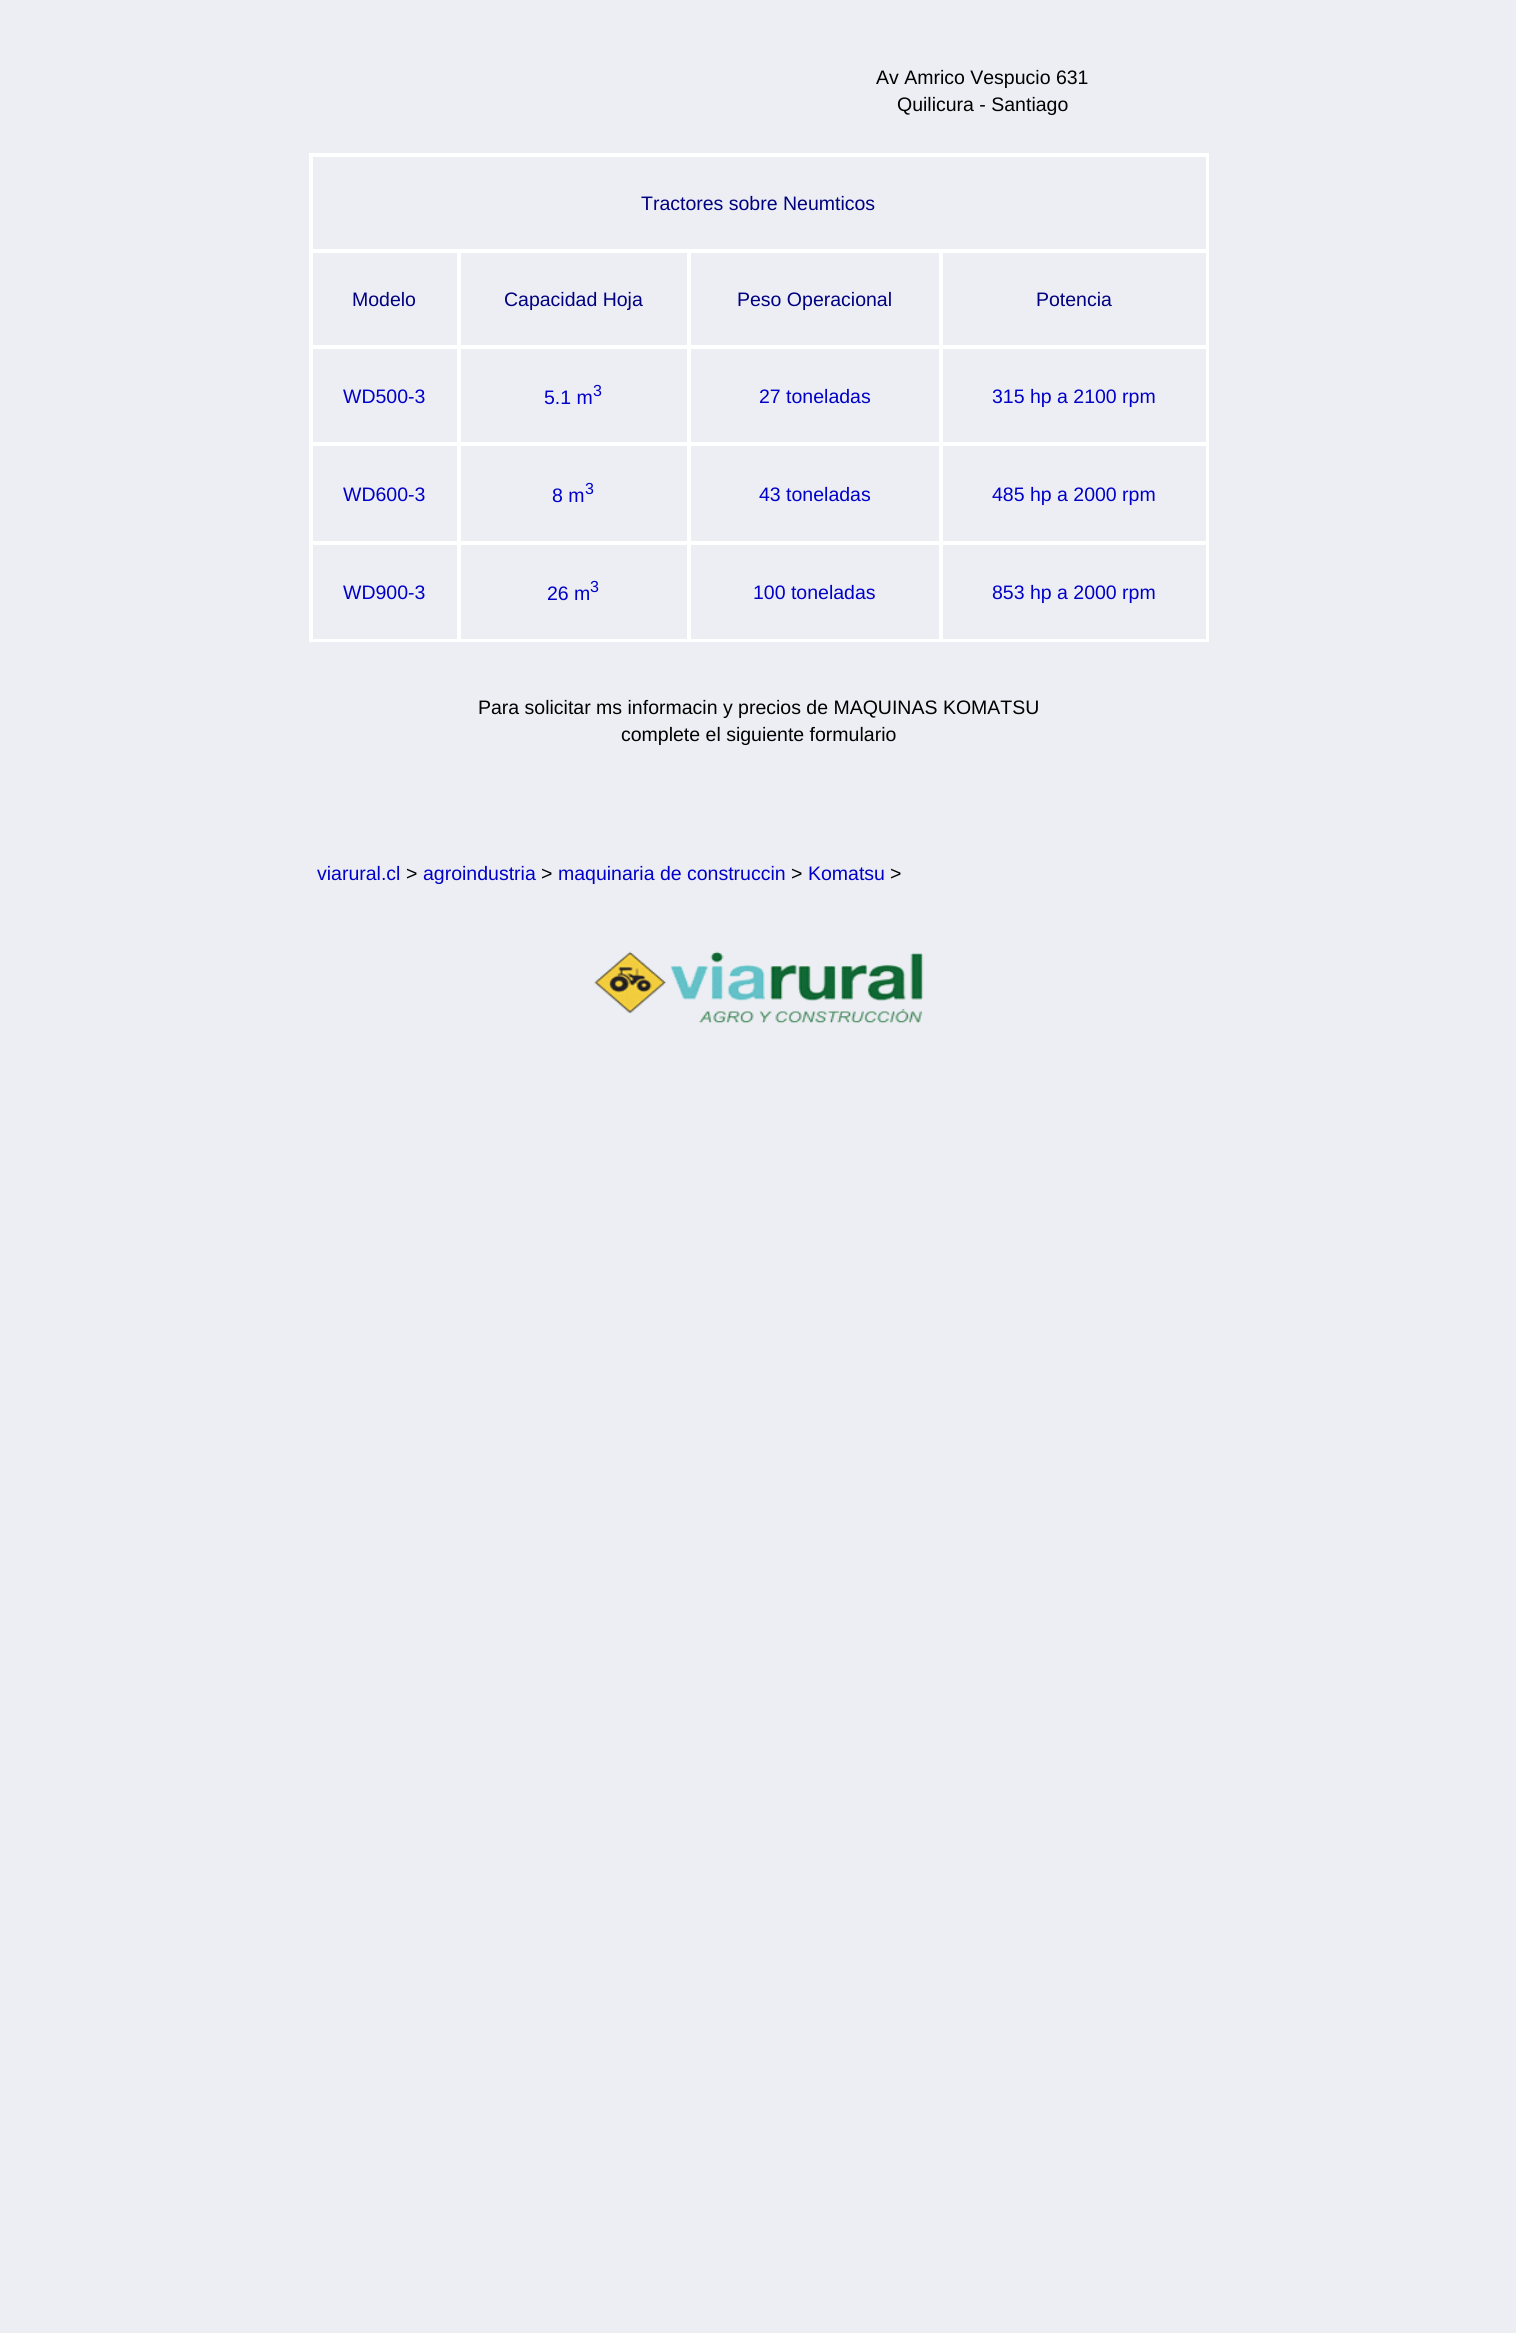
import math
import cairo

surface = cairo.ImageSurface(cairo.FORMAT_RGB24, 1516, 2333)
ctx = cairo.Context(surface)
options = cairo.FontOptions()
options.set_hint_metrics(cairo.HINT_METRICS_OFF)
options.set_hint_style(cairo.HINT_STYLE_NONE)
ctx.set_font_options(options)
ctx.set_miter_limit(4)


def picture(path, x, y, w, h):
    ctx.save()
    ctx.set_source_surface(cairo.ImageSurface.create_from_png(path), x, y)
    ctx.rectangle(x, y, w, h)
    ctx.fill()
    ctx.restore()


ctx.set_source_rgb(0.922, 0.933, 0.953)
ctx.paint()
ctx.select_font_face("Liberation Sans")
ctx.set_font_size(19.5)
ctx.set_source_rgb(0, 0, 0)
ctx.move_to(876, 84)
ctx.show_text("Av Amrico Vespucio 631")
ctx.move_to(897, 111)
ctx.show_text("Quilicura - Santiago")
ctx.rectangle(310, 154, 898, 487)
ctx.set_source_rgb(1, 1, 1)
ctx.stroke()
ctx.rectangle(312, 156, 895, 94)
ctx.stroke()
ctx.set_source_rgb(0, 0, 0.502)
ctx.move_to(641, 210)
ctx.show_text("Tractores sobre Neumticos")
ctx.rectangle(312, 252, 146, 94)
ctx.set_source_rgb(1, 1, 1)
ctx.stroke()
ctx.set_source_rgb(0, 0, 0.502)
ctx.move_to(352, 306)
ctx.show_text("Modelo")
ctx.rectangle(460, 252, 228, 94)
ctx.set_source_rgb(1, 1, 1)
ctx.stroke()
ctx.set_source_rgb(0, 0, 0.502)
ctx.move_to(504, 306)
ctx.show_text("Capacidad Hoja")
ctx.rectangle(690, 252, 250, 94)
ctx.set_source_rgb(1, 1, 1)
ctx.stroke()
ctx.set_source_rgb(0, 0, 0.502)
ctx.move_to(737, 306)
ctx.show_text("Peso Operacional")
ctx.rectangle(942, 252, 265, 94)
ctx.set_source_rgb(1, 1, 1)
ctx.stroke()
ctx.set_source_rgb(0, 0, 0.502)
ctx.move_to(1036, 306)
ctx.show_text("Potencia")
ctx.rectangle(312, 348, 146, 95)
ctx.set_source_rgb(1, 1, 1)
ctx.stroke()
ctx.set_source_rgb(0, 0, 0.784)
ctx.move_to(343, 403)
ctx.show_text("WD500-3")
ctx.rectangle(460, 348, 228, 95)
ctx.set_source_rgb(1, 1, 1)
ctx.stroke()
ctx.set_source_rgb(0, 0, 0.784)
ctx.move_to(544, 404)
ctx.show_text("5.1 m")
ctx.set_font_size(16)
ctx.move_to(593, 396)
ctx.show_text("3")
ctx.rectangle(690, 348, 250, 95)
ctx.set_source_rgb(1, 1, 1)
ctx.stroke()
ctx.set_font_size(19.5)
ctx.set_source_rgb(0, 0, 0.784)
ctx.move_to(759, 403)
ctx.show_text("27 toneladas")
ctx.rectangle(942, 348, 265, 95)
ctx.set_source_rgb(1, 1, 1)
ctx.stroke()
ctx.set_source_rgb(0, 0, 0.784)
ctx.move_to(992, 403)
ctx.show_text("315 hp a 2100 rpm")
ctx.rectangle(312, 445, 146, 97)
ctx.set_source_rgb(1, 1, 1)
ctx.stroke()
ctx.set_source_rgb(0, 0, 0.784)
ctx.move_to(343, 501)
ctx.show_text("WD600-3")
ctx.rectangle(460, 445, 228, 97)
ctx.set_source_rgb(1, 1, 1)
ctx.stroke()
ctx.set_source_rgb(0, 0, 0.784)
ctx.move_to(552, 502)
ctx.show_text("8 m")
ctx.set_font_size(16)
ctx.move_to(585, 494)
ctx.show_text("3")
ctx.rectangle(690, 445, 250, 97)
ctx.set_source_rgb(1, 1, 1)
ctx.stroke()
ctx.set_font_size(19.5)
ctx.set_source_rgb(0, 0, 0.784)
ctx.move_to(759, 501)
ctx.show_text("43 toneladas")
ctx.rectangle(942, 445, 265, 97)
ctx.set_source_rgb(1, 1, 1)
ctx.stroke()
ctx.set_source_rgb(0, 0, 0.784)
ctx.move_to(992, 501)
ctx.show_text("485 hp a 2000 rpm")
ctx.rectangle(312, 544, 146, 96)
ctx.set_source_rgb(1, 1, 1)
ctx.stroke()
ctx.set_source_rgb(0, 0, 0.784)
ctx.move_to(343, 599)
ctx.show_text("WD900-3")
ctx.rectangle(460, 544, 228, 96)
ctx.set_source_rgb(1, 1, 1)
ctx.stroke()
ctx.set_source_rgb(0, 0, 0.784)
ctx.move_to(547, 600)
ctx.show_text("26 m")
ctx.set_font_size(16)
ctx.move_to(590, 592)
ctx.show_text("3")
ctx.rectangle(690, 544, 250, 96)
ctx.set_source_rgb(1, 1, 1)
ctx.stroke()
ctx.set_font_size(19.5)
ctx.set_source_rgb(0, 0, 0.784)
ctx.move_to(753, 599)
ctx.show_text("100 toneladas")
ctx.rectangle(942, 544, 265, 96)
ctx.set_source_rgb(1, 1, 1)
ctx.stroke()
ctx.set_source_rgb(0, 0, 0.784)
ctx.move_to(992, 599)
ctx.show_text("853 hp a 2000 rpm")
ctx.set_source_rgb(0, 0, 0)
ctx.move_to(478, 714)
ctx.show_text("Para solicitar ms informacin y precios de MAQUINAS KOMATSU")
ctx.move_to(621, 741)
ctx.show_text("complete el siguiente formulario")
ctx.set_source_rgb(0, 0, 0.784)
ctx.move_to(317, 880)
ctx.show_text("viarural.cl")
ctx.set_source_rgb(0, 0, 0)
ctx.move_to(406, 880)
ctx.show_text(">")
ctx.set_source_rgb(0, 0, 0.784)
ctx.move_to(423, 880)
ctx.show_text("agroindustria")
ctx.set_source_rgb(0, 0, 0)
ctx.move_to(541, 880)
ctx.show_text(">")
ctx.set_source_rgb(0, 0, 0.784)
ctx.move_to(558, 880)
ctx.show_text("maquinaria de construccin")
ctx.set_source_rgb(0, 0, 0)
ctx.move_to(791, 880)
ctx.show_text(">")
ctx.set_source_rgb(0, 0, 0.784)
ctx.move_to(808, 880)
ctx.show_text("Komatsu")
ctx.set_source_rgb(0, 0, 0)
ctx.move_to(890, 880)
ctx.show_text(">")
picture("img1.png", 594, 951, 330, 73)
surface.write_to_png("page.png")
